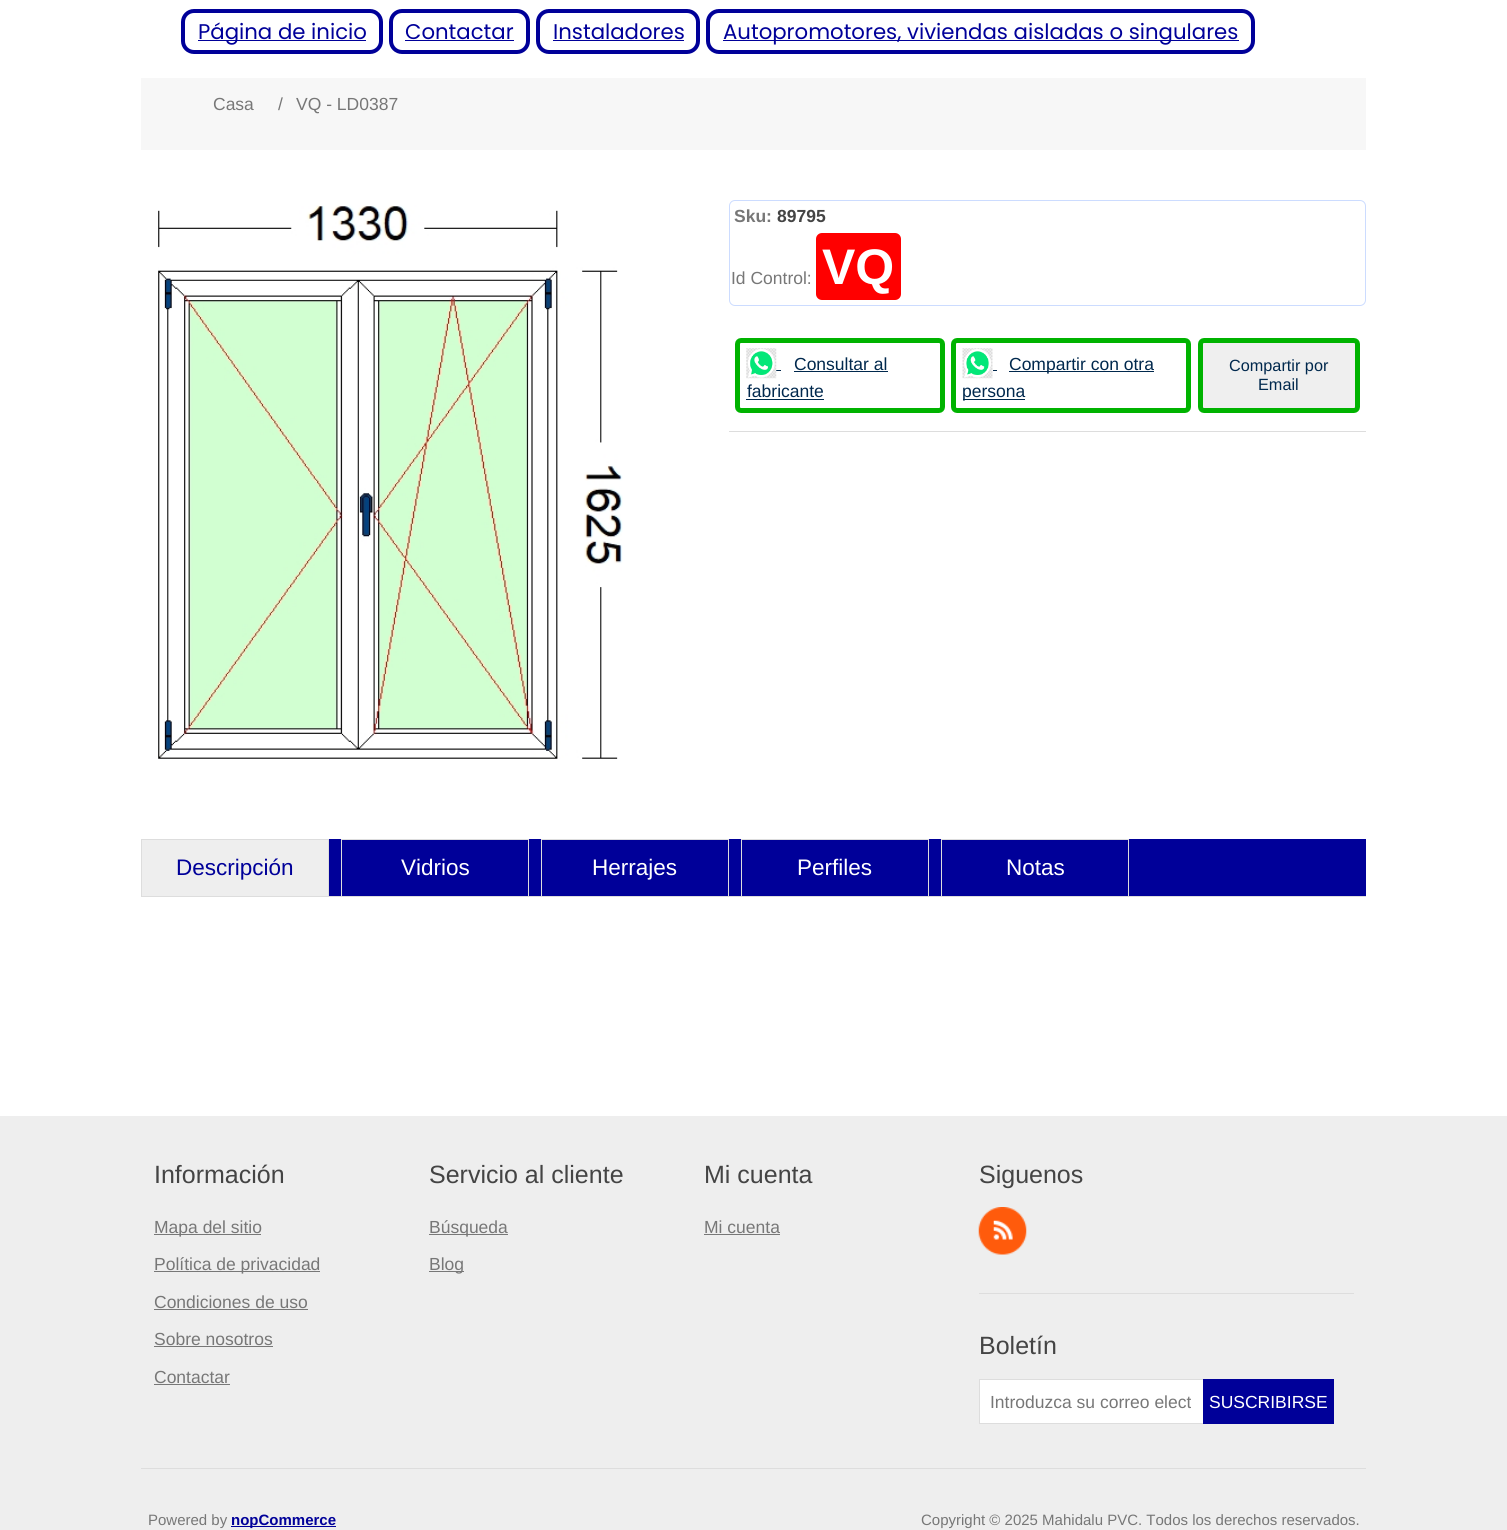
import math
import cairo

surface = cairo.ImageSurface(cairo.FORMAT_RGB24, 1507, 1530)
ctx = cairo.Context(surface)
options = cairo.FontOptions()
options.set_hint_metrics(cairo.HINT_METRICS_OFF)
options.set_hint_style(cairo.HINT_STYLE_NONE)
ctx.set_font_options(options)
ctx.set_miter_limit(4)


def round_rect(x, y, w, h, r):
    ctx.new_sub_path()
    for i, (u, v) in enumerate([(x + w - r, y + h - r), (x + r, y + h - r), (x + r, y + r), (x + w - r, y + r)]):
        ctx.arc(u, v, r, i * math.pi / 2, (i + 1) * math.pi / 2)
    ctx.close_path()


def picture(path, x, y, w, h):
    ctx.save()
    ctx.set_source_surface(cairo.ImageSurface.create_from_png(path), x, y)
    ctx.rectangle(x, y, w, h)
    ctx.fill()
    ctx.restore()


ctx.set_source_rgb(1, 1, 1)
ctx.paint()
round_rect(183, 11, 198, 41, 11)
ctx.set_source_rgb(0, 0, 0.6)
ctx.set_line_width(4)
ctx.stroke()
ctx.rectangle(198, 40, 168, 1)
ctx.fill()
ctx.select_font_face("Poppins")
ctx.set_font_size(21.25)
ctx.move_to(198, 39)
ctx.show_text("Página de inicio")
round_rect(391, 11, 137, 41, 11)
ctx.stroke()
ctx.move_to(405, 39)
ctx.show_text("Contactar")
ctx.rectangle(405, 40, 109, 1)
ctx.fill()
round_rect(538, 11, 160, 41, 11)
ctx.stroke()
ctx.move_to(553, 39)
ctx.show_text("Instaladores")
ctx.rectangle(553, 40, 131, 1)
ctx.fill()
round_rect(708, 11, 545, 41, 11)
ctx.stroke()
ctx.rectangle(723, 40, 516, 1)
ctx.fill()
ctx.move_to(723, 39)
ctx.show_text("Autopromotores, viviendas aisladas o singulares")
ctx.set_source_rgb(0.965, 0.965, 0.965)
ctx.rectangle(141, 78, 1225, 72)
ctx.fill()
ctx.select_font_face("Liberation Sans")
ctx.set_font_size(17.5)
ctx.set_source_rgb(0.467, 0.467, 0.467)
ctx.move_to(213, 110)
ctx.show_text("Casa")
ctx.move_to(278, 110)
ctx.show_text("/")
ctx.move_to(296, 110)
ctx.show_text("VQ - LD0387")
picture("img1.png", 158, 205, 465, 554)
ctx.set_source_rgb(0.867, 0.867, 0.867)
ctx.rectangle(729, 431, 637, 1)
ctx.fill()
round_rect(729.5, 200.5, 636, 105, 5.5)
ctx.set_source_rgb(0.8, 0.863, 1)
ctx.set_line_width(1)
ctx.stroke()
ctx.select_font_face("Liberation Sans", cairo.FONT_SLANT_NORMAL, cairo.FONT_WEIGHT_BOLD)
ctx.set_source_rgb(0.467, 0.467, 0.467)
ctx.move_to(734, 222)
ctx.show_text("Sku:")
ctx.set_source_rgb(0.267, 0.267, 0.267)
ctx.move_to(777, 222)
ctx.show_text("89795")
ctx.select_font_face("Liberation Sans")
ctx.set_source_rgb(0.467, 0.467, 0.467)
ctx.move_to(731, 284)
ctx.show_text("Id Control:")
ctx.set_source_rgb(1, 0, 0)
round_rect(816, 233, 85, 67, 6)
ctx.fill()
ctx.select_font_face("Liberation Sans", cairo.FONT_SLANT_NORMAL, cairo.FONT_WEIGHT_BOLD)
ctx.set_font_size(50)
ctx.set_source_rgb(1, 1, 1)
ctx.move_to(822, 284)
ctx.show_text("VQ")
round_rect(737.5, 340.5, 205, 70, 3.5)
ctx.set_source_rgb(0, 0.702, 0)
ctx.set_line_width(5)
ctx.stroke()
ctx.set_source_rgb(0, 0.157, 0.302)
ctx.rectangle(776, 370, 5, 1)
ctx.fill()
picture("img2.png", 746, 348, 31, 31)
ctx.select_font_face("Liberation Sans")
ctx.set_font_size(17.5)
ctx.move_to(794, 370)
ctx.show_text("Consultar al")
ctx.rectangle(794, 371, 94, 1)
ctx.fill()
ctx.move_to(747, 397)
ctx.show_text("fabricante")
ctx.rectangle(746, 399, 78, 1)
ctx.fill()
round_rect(953.5, 340.5, 235, 70, 3.5)
ctx.set_source_rgb(0, 0.702, 0)
ctx.stroke()
picture("img3.png", 962, 348, 31, 31)
ctx.set_source_rgb(0, 0.157, 0.302)
ctx.rectangle(993, 370, 4, 1)
ctx.fill()
ctx.rectangle(1009, 371, 145, 1)
ctx.fill()
ctx.move_to(1009, 370)
ctx.show_text("Compartir con otra")
ctx.rectangle(963, 399, 62, 1)
ctx.fill()
ctx.move_to(962, 397)
ctx.show_text("persona")
ctx.set_source_rgb(0.937, 0.937, 0.937)
round_rect(1200.5, 340.5, 157, 70, 3.5)
ctx.fill_preserve()
ctx.set_source_rgb(0, 0.702, 0)
ctx.stroke()
ctx.set_font_size(16.25)
ctx.set_source_rgb(0, 0.157, 0.302)
ctx.move_to(1229, 371)
ctx.show_text("Compartir por")
ctx.move_to(1258, 390)
ctx.show_text("Email")
ctx.set_source_rgb(0, 0, 0.6)
ctx.rectangle(329, 839, 1037, 57)
ctx.fill()
ctx.set_source_rgb(0.867, 0.867, 0.867)
ctx.rectangle(141, 896, 1225, 1)
ctx.fill()
ctx.set_source_rgb(0.933, 0.933, 0.933)
ctx.rectangle(142, 840, 186, 56)
ctx.fill()
ctx.save()
ctx.rectangle(141, 839, 1225, 57)
ctx.clip()
ctx.rectangle(141.5, 839.5, 187, 58)
ctx.set_source_rgb(0.867, 0.867, 0.867)
ctx.set_line_width(1)
ctx.stroke()
ctx.restore()
ctx.set_font_size(22.5)
ctx.set_source_rgb(0, 0, 0.6)
ctx.move_to(176, 875)
ctx.show_text("Descripción")
ctx.save()
ctx.rectangle(141, 839, 1225, 57)
ctx.clip()
ctx.rectangle(341.5, 839.5, 187, 58)
ctx.set_source_rgb(0.867, 0.867, 0.867)
ctx.set_line_width(1)
ctx.stroke()
ctx.restore()
ctx.set_source_rgb(1, 1, 1)
ctx.move_to(401, 875)
ctx.show_text("Vidrios")
ctx.save()
ctx.rectangle(141, 839, 1225, 57)
ctx.clip()
ctx.rectangle(541.5, 839.5, 187, 58)
ctx.set_source_rgb(0.867, 0.867, 0.867)
ctx.set_line_width(1)
ctx.stroke()
ctx.restore()
ctx.move_to(592, 875)
ctx.show_text("Herrajes")
ctx.save()
ctx.rectangle(141, 839, 1225, 57)
ctx.clip()
ctx.rectangle(741.5, 839.5, 187, 58)
ctx.set_source_rgb(0.867, 0.867, 0.867)
ctx.set_line_width(1)
ctx.stroke()
ctx.restore()
ctx.move_to(797, 875)
ctx.show_text("Perfiles")
ctx.save()
ctx.rectangle(141, 839, 1225, 57)
ctx.clip()
ctx.rectangle(941.5, 839.5, 187, 58)
ctx.set_source_rgb(0.867, 0.867, 0.867)
ctx.set_line_width(1)
ctx.stroke()
ctx.restore()
ctx.move_to(1006, 875)
ctx.show_text("Notas")
ctx.set_source_rgb(0.933, 0.933, 0.933)
ctx.rectangle(0, 1116, 1507, 414)
ctx.fill()
ctx.set_source_rgb(0.867, 0.867, 0.867)
ctx.rectangle(141, 1468, 1225, 1)
ctx.fill()
ctx.set_font_size(25)
ctx.set_source_rgb(0.267, 0.267, 0.267)
ctx.move_to(154, 1183)
ctx.show_text("Información")
ctx.set_source_rgb(0.467, 0.467, 0.467)
ctx.rectangle(154, 1234, 107, 1)
ctx.fill()
ctx.set_font_size(17.5)
ctx.move_to(154, 1233)
ctx.show_text("Mapa del sitio")
ctx.rectangle(154, 1271, 166, 1)
ctx.fill()
ctx.move_to(154, 1270)
ctx.show_text("Política de privacidad")
ctx.move_to(154, 1308)
ctx.show_text("Condiciones de uso")
ctx.rectangle(154, 1309, 154, 1)
ctx.fill()
ctx.move_to(154, 1345)
ctx.show_text("Sobre nosotros")
ctx.rectangle(154, 1346, 119, 1)
ctx.fill()
ctx.move_to(154, 1383)
ctx.show_text("Contactar")
ctx.rectangle(154, 1384, 76, 1)
ctx.fill()
ctx.set_font_size(25)
ctx.set_source_rgb(0.267, 0.267, 0.267)
ctx.move_to(429, 1183)
ctx.show_text("Servicio al cliente")
ctx.set_source_rgb(0.467, 0.467, 0.467)
ctx.rectangle(429, 1234, 79, 1)
ctx.fill()
ctx.set_font_size(17.5)
ctx.move_to(429, 1233)
ctx.show_text("Búsqueda")
ctx.rectangle(429, 1271, 35, 1)
ctx.fill()
ctx.move_to(429, 1270)
ctx.show_text("Blog")
ctx.set_font_size(25)
ctx.set_source_rgb(0.267, 0.267, 0.267)
ctx.move_to(704, 1183)
ctx.show_text("Mi cuenta")
ctx.set_font_size(17.5)
ctx.set_source_rgb(0.467, 0.467, 0.467)
ctx.move_to(704, 1233)
ctx.show_text("Mi cuenta")
ctx.rectangle(704, 1234, 76, 1)
ctx.fill()
ctx.set_font_size(25)
ctx.set_source_rgb(0.267, 0.267, 0.267)
ctx.move_to(979, 1183)
ctx.show_text("Siguenos")
ctx.set_source_rgb(0.867, 0.867, 0.867)
ctx.rectangle(979, 1293, 375, 1)
ctx.fill()
picture("img4.png", 978, 1207, 49, 48)
ctx.set_source_rgb(0.267, 0.267, 0.267)
ctx.move_to(979, 1354)
ctx.show_text("Boletín")
ctx.set_source_rgb(1, 1, 1)
ctx.rectangle(979.5, 1379.5, 224, 44)
ctx.fill_preserve()
ctx.set_source_rgb(0.867, 0.867, 0.867)
ctx.set_line_width(1)
ctx.stroke()
ctx.set_font_size(17.5)
ctx.set_source_rgb(0.467, 0.467, 0.467)
ctx.move_to(990, 1408)
ctx.show_text("Introduzca su correo elect")
ctx.set_source_rgb(0, 0, 0.6)
ctx.rectangle(1203, 1379, 131, 45)
ctx.fill()
ctx.set_source_rgb(1, 1, 1)
ctx.move_to(1209, 1408)
ctx.show_text("SUSCRIBIRSE")
ctx.set_font_size(15)
ctx.set_source_rgb(0.467, 0.467, 0.467)
ctx.move_to(148, 1525)
ctx.show_text("Powered by")
ctx.set_source_rgb(0, 0, 0.6)
ctx.rectangle(231, 1526, 105, 1)
ctx.fill()
ctx.select_font_face("Liberation Sans", cairo.FONT_SLANT_NORMAL, cairo.FONT_WEIGHT_BOLD)
ctx.move_to(231, 1525)
ctx.show_text("nopCommerce")
ctx.select_font_face("Liberation Sans")
ctx.set_source_rgb(0.467, 0.467, 0.467)
ctx.move_to(921, 1525)
ctx.show_text("Copyright © 2025 Mahidalu PVC. Todos los derechos reservados.")
surface.write_to_png("page.png")
